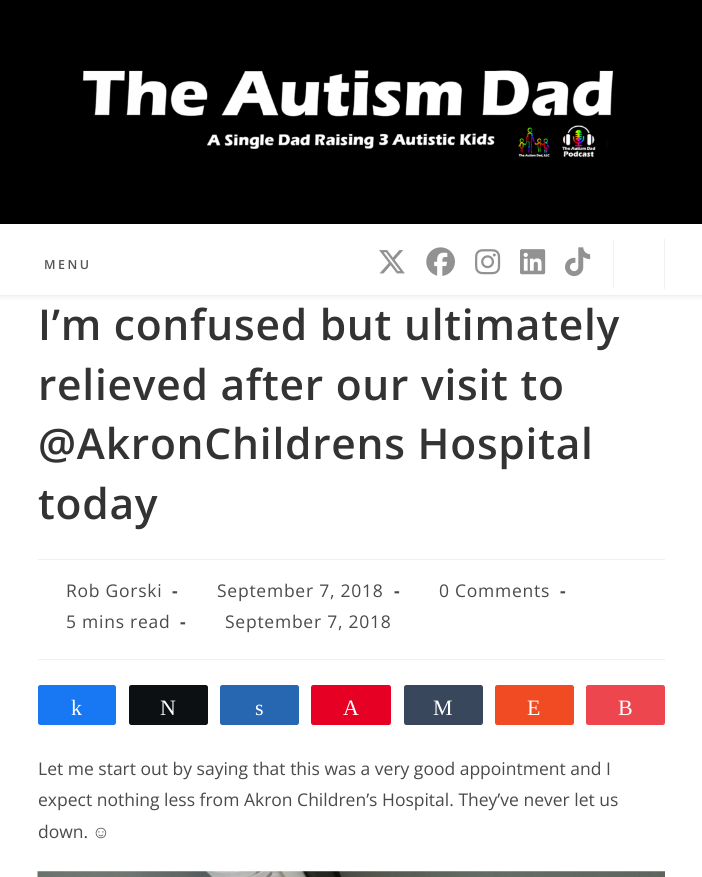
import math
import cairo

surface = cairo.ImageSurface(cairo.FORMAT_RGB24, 702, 877)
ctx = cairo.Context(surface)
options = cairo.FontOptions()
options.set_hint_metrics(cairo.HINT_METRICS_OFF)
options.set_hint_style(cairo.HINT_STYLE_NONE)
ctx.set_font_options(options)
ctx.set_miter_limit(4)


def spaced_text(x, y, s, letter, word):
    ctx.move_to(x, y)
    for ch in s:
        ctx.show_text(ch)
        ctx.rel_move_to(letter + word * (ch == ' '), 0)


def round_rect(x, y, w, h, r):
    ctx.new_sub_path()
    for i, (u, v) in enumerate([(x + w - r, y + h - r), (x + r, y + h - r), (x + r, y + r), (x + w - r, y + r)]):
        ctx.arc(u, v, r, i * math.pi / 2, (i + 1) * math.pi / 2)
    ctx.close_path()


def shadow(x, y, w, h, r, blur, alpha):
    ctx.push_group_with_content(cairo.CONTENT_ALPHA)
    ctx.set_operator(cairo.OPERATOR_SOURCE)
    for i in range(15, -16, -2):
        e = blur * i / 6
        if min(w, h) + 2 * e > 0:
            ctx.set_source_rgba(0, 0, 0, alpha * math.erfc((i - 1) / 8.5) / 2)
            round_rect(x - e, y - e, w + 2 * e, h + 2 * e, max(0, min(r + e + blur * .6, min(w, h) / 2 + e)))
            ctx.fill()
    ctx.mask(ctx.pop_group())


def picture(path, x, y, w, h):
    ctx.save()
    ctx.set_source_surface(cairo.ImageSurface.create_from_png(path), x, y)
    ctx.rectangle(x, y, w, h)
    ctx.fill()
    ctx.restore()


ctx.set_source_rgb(1, 1, 1)
ctx.paint()
ctx.set_source_rgb(0, 0, 0)
ctx.rectangle(0, 0, 702, 224)
ctx.fill()
picture("img1.png", 82, 70, 532, 88)
ctx.set_source_rgb(0, 0, 0)
shadow(0, 225, 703, 71, 0, 3, 0.1)
ctx.set_source_rgb(1, 1, 1)
ctx.rectangle(0, 224, 702, 71)
ctx.fill()
ctx.select_font_face("Open Sans SemiBold")
ctx.set_font_size(12.5)
ctx.set_source_rgb(0.333, 0.333, 0.333)
spaced_text(44, 269, "MENU", 2.5, 0)
picture("img2.png", 379, 250, 26, 24)
picture("img3.png", 426, 247, 29, 29)
picture("img4.png", 475, 249, 26, 26)
picture("img5.png", 520, 249, 26, 26)
picture("img6.png", 565, 247, 26, 30)
ctx.set_source_rgb(0.945, 0.945, 0.945)
ctx.rectangle(664, 239, 1, 50)
ctx.fill()
ctx.rectangle(613, 239, 1, 50)
ctx.fill()
ctx.rectangle(38, 559, 627, 1)
ctx.fill()
ctx.set_font_size(42.5)
ctx.set_source_rgb(0.2, 0.2, 0.2)
spaced_text(38, 340, "I’m confused but ultimately", 0.75, 0)
spaced_text(38, 400, "relieved after our visit to", 0.75, 0)
spaced_text(38, 459, "@AkronChildrens Hospital", 0.75, 0)
spaced_text(38, 519, "today", 0.75, 0)
ctx.set_source_rgb(0.945, 0.945, 0.945)
ctx.rectangle(38, 659, 627, 1)
ctx.fill()
ctx.select_font_face("Open Sans")
ctx.set_font_size(17.5)
ctx.set_source_rgb(0.29, 0.29, 0.29)
spaced_text(66, 597, "Rob Gorski", 0.75, 0)
ctx.select_font_face("Open Sans", cairo.FONT_SLANT_NORMAL, cairo.FONT_WEIGHT_BOLD)
spaced_text(172, 597, "-", 0.75, 0)
ctx.select_font_face("Open Sans")
spaced_text(217, 597, "September 7, 2018", 0.75, 0)
ctx.select_font_face("Open Sans", cairo.FONT_SLANT_NORMAL, cairo.FONT_WEIGHT_BOLD)
spaced_text(394, 597, "-", 0.75, 0)
ctx.select_font_face("Open Sans")
spaced_text(439, 597, "0 Comments", 0.75, 0)
ctx.select_font_face("Open Sans", cairo.FONT_SLANT_NORMAL, cairo.FONT_WEIGHT_BOLD)
spaced_text(560, 597, "-", 0.75, 0)
ctx.select_font_face("Open Sans")
spaced_text(66, 628, "5 mins read", 0.75, 0)
ctx.select_font_face("Open Sans", cairo.FONT_SLANT_NORMAL, cairo.FONT_WEIGHT_BOLD)
spaced_text(180, 628, "-", 0.75, 0)
ctx.select_font_face("Open Sans")
spaced_text(225, 628, "September 7, 2018", 0.75, 0)
ctx.set_source_rgb(0.094, 0.467, 0.949)
round_rect(38.5, 685.5, 77, 39, 2)
ctx.fill_preserve()
ctx.set_line_width(1)
ctx.stroke()
ctx.select_font_face("Liberation Serif")
ctx.set_font_size(22)
ctx.set_source_rgb(1, 1, 1)
ctx.move_to(71, 715)
ctx.show_text("k")
ctx.set_source_rgb(0.051, 0.063, 0.078)
round_rect(129.5, 685.5, 78, 39, 2)
ctx.fill_preserve()
ctx.stroke()
ctx.set_source_rgb(1, 1, 1)
ctx.move_to(160, 715)
ctx.show_text("N")
ctx.set_source_rgb(0.153, 0.404, 0.694)
round_rect(220.5, 685.5, 78, 39, 2)
ctx.fill_preserve()
ctx.stroke()
ctx.set_source_rgb(1, 1, 1)
ctx.move_to(255, 715)
ctx.show_text("s")
ctx.set_source_rgb(0.902, 0, 0.137)
round_rect(311.5, 685.5, 79, 39, 2)
ctx.fill_preserve()
ctx.stroke()
ctx.set_source_rgb(1, 1, 1)
ctx.move_to(343, 715)
ctx.show_text("A")
ctx.set_source_rgb(0.224, 0.278, 0.365)
round_rect(404.5, 685.5, 78, 39, 2)
ctx.fill_preserve()
ctx.stroke()
ctx.set_source_rgb(1, 1, 1)
ctx.move_to(433, 715)
ctx.show_text("M")
ctx.set_source_rgb(0.941, 0.294, 0.137)
round_rect(495.5, 685.5, 78, 39, 2)
ctx.fill_preserve()
ctx.stroke()
ctx.set_source_rgb(1, 1, 1)
ctx.move_to(527, 715)
ctx.show_text("E")
ctx.set_source_rgb(0.933, 0.275, 0.31)
round_rect(586.5, 685.5, 78, 39, 2)
ctx.fill_preserve()
ctx.stroke()
ctx.set_source_rgb(1, 1, 1)
ctx.move_to(618, 715)
ctx.show_text("B")
ctx.select_font_face("Open Sans")
ctx.set_font_size(17.5)
ctx.set_source_rgb(0.29, 0.29, 0.29)
ctx.move_to(38, 775)
ctx.show_text("Let me start out by saying that this was a very good appointment and I")
ctx.move_to(38, 806)
ctx.show_text("expect nothing less from Akron Children’s Hospital. They’ve never let us")
ctx.move_to(38, 838)
ctx.show_text("down.")
ctx.select_font_face("Liberation Sans")
ctx.move_to(92, 838)
ctx.show_text("☺")
picture("img7.png", 37, 871, 628, 6)
surface.write_to_png("page.png")
